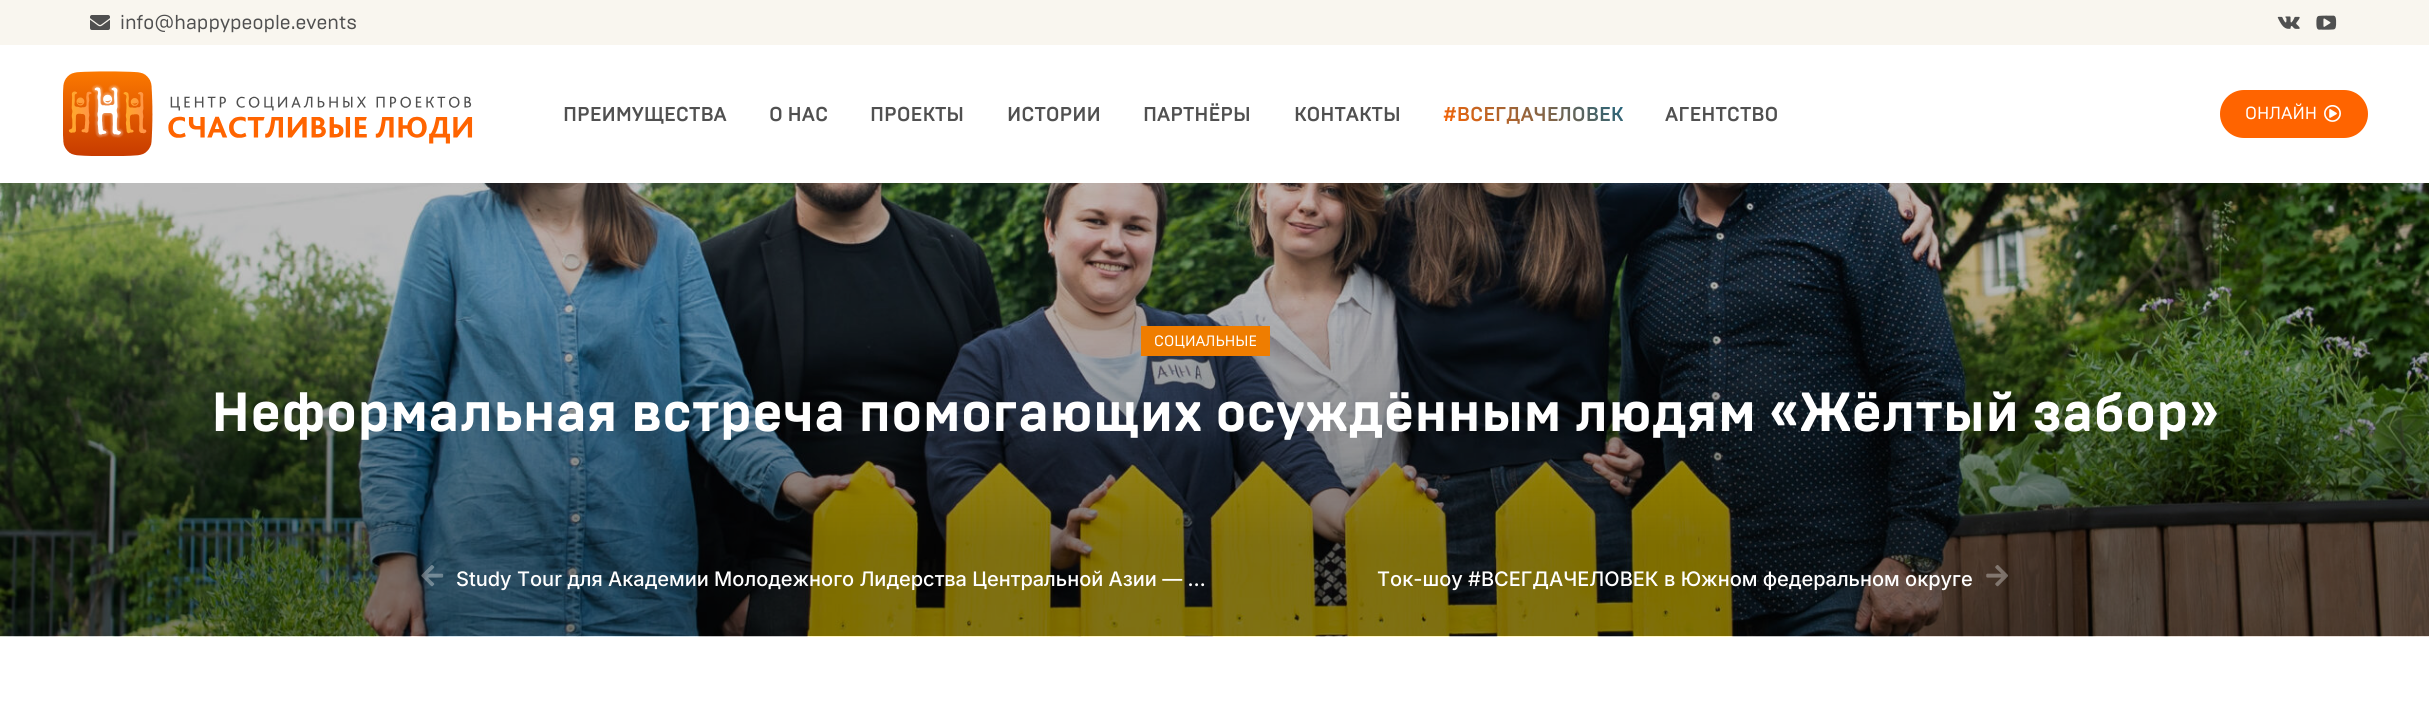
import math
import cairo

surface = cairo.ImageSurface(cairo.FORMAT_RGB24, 2429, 714)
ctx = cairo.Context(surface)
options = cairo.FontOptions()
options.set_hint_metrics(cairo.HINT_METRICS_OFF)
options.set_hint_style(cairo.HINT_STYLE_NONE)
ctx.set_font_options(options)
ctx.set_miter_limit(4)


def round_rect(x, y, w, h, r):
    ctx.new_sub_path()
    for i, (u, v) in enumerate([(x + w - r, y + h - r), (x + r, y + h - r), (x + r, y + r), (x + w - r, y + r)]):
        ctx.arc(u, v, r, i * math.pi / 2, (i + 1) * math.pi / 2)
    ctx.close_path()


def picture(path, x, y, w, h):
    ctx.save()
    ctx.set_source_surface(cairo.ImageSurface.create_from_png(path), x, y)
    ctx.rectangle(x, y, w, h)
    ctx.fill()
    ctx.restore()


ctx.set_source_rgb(1, 1, 1)
ctx.paint()
ctx.set_source_rgb(0.976, 0.961, 0.937)
ctx.rectangle(0, 0, 2429, 45)
ctx.fill()
picture("img1.png", 90, 15, 20, 15)
ctx.select_font_face("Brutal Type")
ctx.set_font_size(20)
ctx.set_source_rgb(0.314, 0.314, 0.314)
ctx.move_to(120, 29)
ctx.show_text("info@happypeople.events")
picture("img2.png", 2277, 16, 23, 13)
picture("img3.png", 2316, 15, 21, 15)
picture("img4.png", 63, 71, 410, 85)
ctx.select_font_face("Brutal Type Medium")
ctx.move_to(563, 121)
ctx.show_text("ПРЕИМУЩЕСТВА")
ctx.move_to(769, 121)
ctx.show_text("О НАС")
ctx.move_to(870, 121)
ctx.show_text("ПРОЕКТЫ")
ctx.move_to(1007, 121)
ctx.show_text("ИСТОРИИ")
ctx.move_to(1143, 121)
ctx.show_text("ПАРТНЁРЫ")
ctx.move_to(1294, 121)
ctx.show_text("КОНТАКТЫ")
gradient = cairo.LinearGradient(1482, 166, 1584, 63)
gradient.add_color_stop_rgba(0, 1, 0.392, 0, 1)
gradient.add_color_stop_rgba(1, 0.122, 0.392, 0.498, 1)
ctx.set_source(gradient)
ctx.move_to(1443, 121)
ctx.show_text("#ВСЕГДАЧЕЛОВЕК")
ctx.set_source_rgb(0.314, 0.314, 0.314)
ctx.move_to(1665, 121)
ctx.show_text("АГЕНТСТВО")
ctx.set_source_rgb(1, 0.392, 0)
round_rect(2220, 90, 148, 48, 24)
ctx.fill()
ctx.select_font_face("Brutal Type")
ctx.set_font_size(17.5)
ctx.set_source_rgb(1, 1, 1)
ctx.move_to(2245, 119)
ctx.show_text("ОНЛАЙН")
picture("img5.png", 2324, 105, 17, 17)
picture("img6.png", 0, 183, 2429, 454)
gradient = cairo.LinearGradient(1215, 176, 1215, 636)
gradient.add_color_stop_rgba(0.2, 0, 0, 0, 0.25)
gradient.add_color_stop_rgba(0.8, 0, 0, 0, 0.5)
ctx.set_source(gradient)
ctx.rectangle(0, 183, 2429, 453)
ctx.fill()
ctx.set_source_rgb(0.937, 0.49, 0)
ctx.rectangle(1141, 326, 129, 30)
ctx.fill()
ctx.set_font_size(15)
ctx.set_source_rgb(1, 1, 1)
ctx.move_to(1154, 346)
ctx.show_text("СОЦИАЛЬНЫЕ")
ctx.select_font_face("Brutal Type", cairo.FONT_SLANT_NORMAL, cairo.FONT_WEIGHT_BOLD)
ctx.set_font_size(55)
ctx.move_to(211, 431)
ctx.show_text("Неформальная встреча помогающих осуждённым людям «Жёлтый забор»")
picture("img7.png", 421, 565, 23, 22)
ctx.select_font_face("Inter Medium")
ctx.set_font_size(20)
ctx.move_to(456, 586)
ctx.show_text("Study Tour для Академии Молодежного Лидерства Центральной Азии — …")
ctx.move_to(1377, 586)
ctx.show_text("Ток-шоу #ВСЕГДАЧЕЛОВЕК в Южном федеральном округе")
picture("img8.png", 1986, 565, 22, 22)
surface.write_to_png("page.png")
